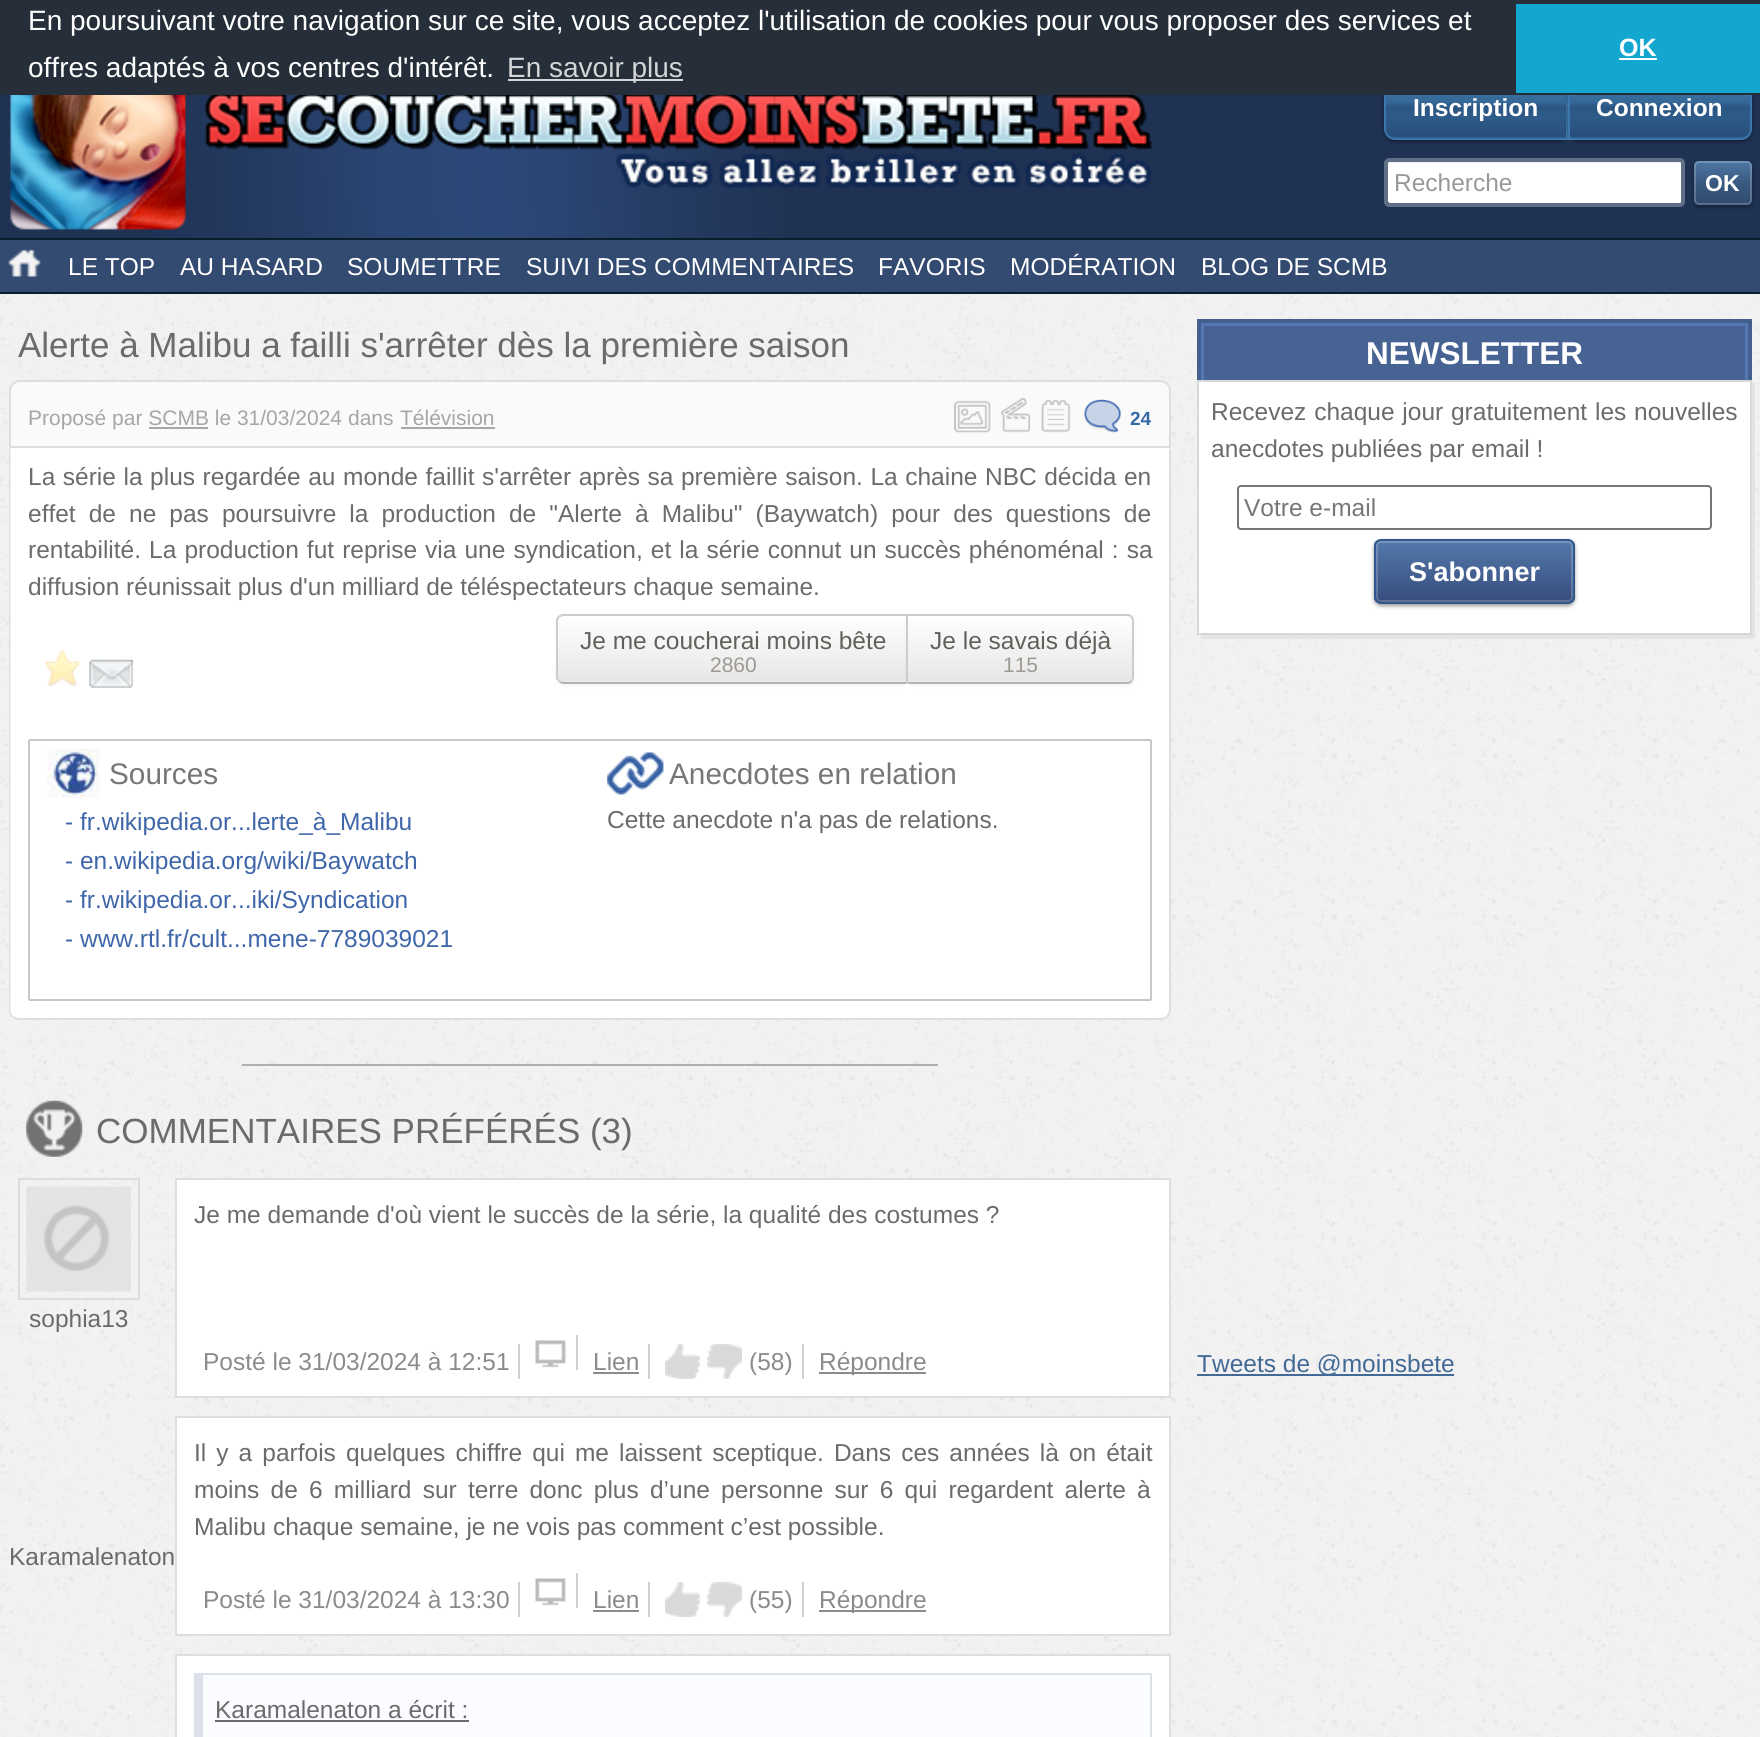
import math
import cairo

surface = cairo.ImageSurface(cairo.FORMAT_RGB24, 1760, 1737)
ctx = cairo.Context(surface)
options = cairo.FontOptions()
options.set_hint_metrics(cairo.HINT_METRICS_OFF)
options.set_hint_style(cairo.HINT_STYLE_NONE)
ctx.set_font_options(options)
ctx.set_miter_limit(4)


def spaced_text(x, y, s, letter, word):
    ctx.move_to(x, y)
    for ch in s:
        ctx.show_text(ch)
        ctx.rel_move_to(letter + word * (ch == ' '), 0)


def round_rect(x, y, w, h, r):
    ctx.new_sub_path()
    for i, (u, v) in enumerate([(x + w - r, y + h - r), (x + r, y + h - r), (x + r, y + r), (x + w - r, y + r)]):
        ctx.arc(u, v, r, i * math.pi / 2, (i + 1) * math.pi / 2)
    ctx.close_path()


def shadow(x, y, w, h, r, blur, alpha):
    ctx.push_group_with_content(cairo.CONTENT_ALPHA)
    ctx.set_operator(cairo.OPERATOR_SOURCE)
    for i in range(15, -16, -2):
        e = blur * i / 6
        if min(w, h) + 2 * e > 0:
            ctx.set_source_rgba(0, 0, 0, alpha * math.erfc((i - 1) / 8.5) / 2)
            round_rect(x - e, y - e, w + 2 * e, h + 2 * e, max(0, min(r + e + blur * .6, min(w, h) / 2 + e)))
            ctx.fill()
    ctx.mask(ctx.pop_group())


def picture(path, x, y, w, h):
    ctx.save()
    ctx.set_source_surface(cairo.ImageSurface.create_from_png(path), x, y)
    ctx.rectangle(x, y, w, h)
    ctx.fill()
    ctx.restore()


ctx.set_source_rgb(1, 1, 1)
ctx.paint()
ctx.set_source_rgb(0.122, 0.196, 0.325)
ctx.rectangle(0, 95, 1760, 143)
ctx.fill()
ctx.set_source_rgb(0, 0, 0)
shadow(1384, 75, 184, 67, 11, 2, 0.4)
gradient = cairo.LinearGradient(1476, 73, 1476, 140)
gradient.add_color_stop_rgba(0, 0.051, 0.294, 0.561, 1)
gradient.add_color_stop_rgba(0.03, 0.322, 0.639, 0.776, 1)
gradient.add_color_stop_rgba(0.06, 0.247, 0.486, 0.675, 1)
gradient.add_color_stop_rgba(0.33, 0.22, 0.435, 0.624, 1)
gradient.add_color_stop_rgba(0.36, 0.212, 0.42, 0.604, 1)
gradient.add_color_stop_rgba(0.42, 0.212, 0.416, 0.6, 1)
gradient.add_color_stop_rgba(0.44, 0.204, 0.4, 0.588, 1)
gradient.add_color_stop_rgba(0.5, 0.173, 0.345, 0.525, 1)
gradient.add_color_stop_rgba(0.53, 0.169, 0.329, 0.506, 1)
gradient.add_color_stop_rgba(0.56, 0.173, 0.345, 0.518, 1)
gradient.add_color_stop_rgba(0.67, 0.18, 0.357, 0.537, 1)
gradient.add_color_stop_rgba(0.72, 0.173, 0.337, 0.518, 1)
gradient.add_color_stop_rgba(0.75, 0.173, 0.341, 0.522, 1)
gradient.add_color_stop_rgba(0.94, 0.153, 0.306, 0.486, 1)
gradient.add_color_stop_rgba(0.97, 0.184, 0.361, 0.576, 1)
gradient.add_color_stop_rgba(1, 0.098, 0.231, 0.459, 1)
ctx.set_source(gradient)
ctx.new_path()
ctx.move_to(1395, 75)
ctx.line_to(1567, 75)
ctx.line_to(1567, 139)
ctx.line_to(1395, 139)
ctx.curve_to(1389.5, 139, 1385, 134.5, 1385, 129)
ctx.line_to(1385, 85)
ctx.curve_to(1385, 79.5, 1389.5, 75, 1395, 75)
ctx.close_path()
ctx.fill_preserve()
ctx.set_source_rgb(0.239, 0.471, 0.678)
ctx.stroke()
ctx.set_source_rgb(0, 0, 0)
shadow(1568, 75, 184, 67, 11, 2, 0.4)
gradient = cairo.LinearGradient(1660, 73, 1660, 140)
gradient.add_color_stop_rgba(0, 0.051, 0.294, 0.561, 1)
gradient.add_color_stop_rgba(0.03, 0.322, 0.639, 0.776, 1)
gradient.add_color_stop_rgba(0.06, 0.247, 0.486, 0.675, 1)
gradient.add_color_stop_rgba(0.33, 0.22, 0.435, 0.624, 1)
gradient.add_color_stop_rgba(0.36, 0.212, 0.42, 0.604, 1)
gradient.add_color_stop_rgba(0.42, 0.212, 0.416, 0.6, 1)
gradient.add_color_stop_rgba(0.44, 0.204, 0.4, 0.588, 1)
gradient.add_color_stop_rgba(0.5, 0.173, 0.345, 0.525, 1)
gradient.add_color_stop_rgba(0.53, 0.169, 0.329, 0.506, 1)
gradient.add_color_stop_rgba(0.56, 0.173, 0.345, 0.518, 1)
gradient.add_color_stop_rgba(0.67, 0.18, 0.357, 0.537, 1)
gradient.add_color_stop_rgba(0.72, 0.173, 0.337, 0.518, 1)
gradient.add_color_stop_rgba(0.75, 0.173, 0.341, 0.522, 1)
gradient.add_color_stop_rgba(0.94, 0.153, 0.306, 0.486, 1)
gradient.add_color_stop_rgba(0.97, 0.184, 0.361, 0.576, 1)
gradient.add_color_stop_rgba(1, 0.098, 0.231, 0.459, 1)
ctx.set_source(gradient)
ctx.new_path()
ctx.move_to(1569, 75)
ctx.line_to(1741, 75)
ctx.curve_to(1746.5, 75, 1751, 79.5, 1751, 85)
ctx.line_to(1751, 129)
ctx.curve_to(1751, 134.5, 1746.5, 139, 1741, 139)
ctx.line_to(1569, 139)
ctx.close_path()
ctx.fill_preserve()
ctx.set_source_rgb(0.239, 0.471, 0.678)
ctx.stroke()
ctx.set_source_rgb(0.145, 0.18, 0.224)
ctx.rectangle(0, 0, 1760, 95)
ctx.fill()
ctx.select_font_face("Liberation Sans")
ctx.set_font_size(28)
ctx.set_source_rgb(1, 1, 1)
ctx.move_to(28, 30)
ctx.show_text("En poursuivant votre navigation sur ce site, vous acceptez l'utilisation de cookies pour vous proposer des services et")
ctx.move_to(28, 77)
ctx.show_text("offres adaptés à vos centres d'intérêt.")
ctx.set_source_rgb(0.827, 0.835, 0.843)
ctx.rectangle(508, 79, 175, 2)
ctx.fill()
ctx.move_to(507, 77)
ctx.show_text("En savoir plus")
ctx.set_source_rgb(0.078, 0.655, 0.816)
ctx.rectangle(1516, 4, 244, 89)
ctx.fill()
ctx.select_font_face("Liberation Sans", cairo.FONT_SLANT_NORMAL, cairo.FONT_WEIGHT_BOLD)
ctx.set_font_size(25)
ctx.set_source_rgb(1, 1, 1)
ctx.move_to(1619, 56)
ctx.show_text("OK")
ctx.rectangle(1619, 58, 38, 2)
ctx.fill()
picture("img1.png", 0, 294, 1760, 1443)
gradient = cairo.RadialGradient(1274, 141, 0, 1274, 141, 1269)
gradient.add_color_stop_rgba(0, 0.122, 0.196, 0.325, 1)
gradient.add_color_stop_rgba(0.37, 0.122, 0.196, 0.325, 1)
gradient.add_color_stop_rgba(0.44, 0.133, 0.216, 0.357, 1)
gradient.add_color_stop_rgba(0.57, 0.169, 0.271, 0.451, 1)
gradient.add_color_stop_rgba(0.62, 0.173, 0.282, 0.471, 1)
gradient.add_color_stop_rgba(0.7, 0.165, 0.271, 0.451, 1)
gradient.add_color_stop_rgba(0.81, 0.141, 0.224, 0.373, 1)
gradient.add_color_stop_rgba(0.9, 0.122, 0.196, 0.329, 1)
gradient.add_color_stop_rgba(1, 0.122, 0.196, 0.325, 1)
ctx.set_source(gradient)
ctx.rectangle(151, 95, 634, 143)
ctx.fill()
picture("img2.png", 10, 95, 1142, 135)
ctx.set_font_size(24.5)
ctx.set_source_rgb(1, 1, 1)
ctx.move_to(1413, 116)
ctx.show_text("Inscription")
ctx.move_to(1596, 116)
ctx.show_text("Connexion")
round_rect(1388, 161, 294, 42, 2)
ctx.fill()
ctx.set_source_rgba(0, 0, 0, 0.07)
ctx.new_path()
ctx.move_to(1390, 163)
ctx.line_to(1680, 163)
ctx.line_to(1682, 164)
ctx.curve_to(1682, 163, 1682, 161, 1680, 161)
ctx.line_to(1389, 161)
ctx.line_to(1388, 164)
ctx.close_path()
ctx.fill()
round_rect(1386, 160, 297, 45, 3)
ctx.set_source_rgb(0.38, 0.439, 0.537)
ctx.set_line_width(4)
ctx.stroke()
ctx.select_font_face("Liberation Sans")
ctx.set_source_rgb(0.6, 0.6, 0.6)
ctx.move_to(1394, 191)
ctx.show_text("Recherche")
ctx.set_source_rgb(0, 0, 0)
shadow(1694, 163, 58, 44, 5, 2, 0.4)
gradient = cairo.LinearGradient(1723, 161, 1723, 205)
gradient.add_color_stop_rgba(0, 0.306, 0.467, 0.647, 1)
gradient.add_color_stop_rgba(0.5, 0.227, 0.349, 0.502, 1)
gradient.add_color_stop_rgba(1, 0.192, 0.294, 0.431, 1)
ctx.set_source(gradient)
round_rect(1694, 161, 58, 44, 5)
ctx.fill()
round_rect(1695, 162, 56, 42, 4)
ctx.set_source_rgba(1, 1, 1, 0.2)
ctx.set_line_width(2)
ctx.stroke()
ctx.select_font_face("Liberation Sans", cairo.FONT_SLANT_NORMAL, cairo.FONT_WEIGHT_BOLD)
ctx.set_font_size(23)
ctx.set_source_rgb(1, 1, 1)
ctx.move_to(1705, 191)
ctx.show_text("OK")
ctx.set_source_rgb(0.204, 0.294, 0.443)
ctx.rectangle(0, 240, 1760, 52)
ctx.fill()
ctx.set_source_rgb(0.039, 0.118, 0.169)
ctx.rectangle(0, 238, 1760, 2)
ctx.fill()
ctx.rectangle(0, 292, 1760, 2)
ctx.fill()
picture("img3.png", 8, 249, 33, 28)
ctx.select_font_face("Liberation Sans")
ctx.set_font_size(24.5)
ctx.set_source_rgb(1, 1, 1)
ctx.move_to(68, 275)
ctx.show_text("LE TOP")
ctx.move_to(180, 275)
ctx.show_text("AU HASARD")
ctx.move_to(347, 275)
ctx.show_text("SOUMETTRE")
ctx.move_to(526, 275)
ctx.show_text("SUIVI DES COMMENTAIRES")
ctx.move_to(878, 275)
ctx.show_text("FAVORIS")
ctx.move_to(1010, 275)
ctx.show_text("MODÉRATION")
ctx.move_to(1201, 275)
ctx.show_text("BLOG DE SCMB")
ctx.set_font_size(35)
ctx.set_source_rgb(0.42, 0.42, 0.42)
ctx.move_to(18, 357)
ctx.show_text("Alerte à Malibu a failli s'arrêter dès la première saison")
ctx.set_source_rgb(0.98, 0.98, 0.98)
ctx.new_path()
ctx.move_to(20, 381)
ctx.line_to(1160, 381)
ctx.curve_to(1165.5, 381, 1170, 385.5, 1170, 391)
ctx.line_to(1170, 447)
ctx.line_to(10, 447)
ctx.line_to(10, 391)
ctx.curve_to(10, 385.5, 14.5, 381, 20, 381)
ctx.close_path()
ctx.fill_preserve()
ctx.set_source_rgb(0.871, 0.871, 0.871)
ctx.stroke()
ctx.set_font_size(21)
ctx.set_source_rgb(0.651, 0.651, 0.651)
ctx.move_to(28, 425)
ctx.show_text("Proposé par SCMB le 31/03/2024")
ctx.rectangle(149, 427, 59, 2)
ctx.fill()
ctx.move_to(348, 425)
ctx.show_text("dans")
ctx.move_to(400, 425)
ctx.show_text("Télévision")
ctx.rectangle(401, 427, 94, 2)
ctx.fill()
picture("img4.png", 954, 400, 37, 33)
picture("img5.png", 1001, 397, 29, 36)
picture("img6.png", 1041, 399, 30, 34)
picture("img7.png", 1084, 399, 37, 34)
ctx.select_font_face("Liberation Sans", cairo.FONT_SLANT_NORMAL, cairo.FONT_WEIGHT_BOLD)
ctx.set_font_size(19)
ctx.set_source_rgb(0.2, 0.416, 0.651)
ctx.move_to(1130, 425)
ctx.show_text("24")
ctx.set_source_rgb(1, 1, 1)
ctx.new_path()
ctx.move_to(11, 450)
ctx.line_to(1169, 450)
ctx.line_to(1169, 1010)
ctx.curve_to(1169, 1015, 1165, 1019, 1160, 1019)
ctx.line_to(20, 1019)
ctx.curve_to(15, 1019, 11, 1015, 11, 1010)
ctx.close_path()
ctx.fill()
ctx.new_path()
ctx.move_to(9, 448)
ctx.line_to(11, 450)
ctx.line_to(1169, 450)
ctx.line_to(1171, 448)
ctx.close_path()
ctx.fill()
ctx.set_source_rgb(0.871, 0.871, 0.871)
ctx.new_path()
ctx.move_to(1171, 448)
ctx.line_to(1171, 1012)
ctx.curve_to(1170, 1014, 1169, 1016, 1168, 1017)
ctx.line_to(1166, 1016)
ctx.curve_to(1168, 1014, 1169, 1012, 1169, 1010)
ctx.line_to(1169, 450)
ctx.close_path()
ctx.fill()
ctx.new_path()
ctx.move_to(1168, 1017)
ctx.curve_to(1166, 1019, 1163, 1020, 1160, 1020)
ctx.line_to(19, 1020)
ctx.curve_to(16, 1020, 14, 1019, 12, 1017)
ctx.line_to(13, 1016)
ctx.curve_to(15, 1017, 17, 1018, 19, 1018)
ctx.line_to(1160, 1018)
ctx.curve_to(1162, 1018, 1165, 1017, 1166, 1016)
ctx.close_path()
ctx.fill()
ctx.new_path()
ctx.move_to(10, 450)
ctx.line_to(11, 450)
ctx.line_to(9, 448)
ctx.line_to(9, 1010)
ctx.curve_to(9, 1013, 10, 1016, 12, 1017)
ctx.line_to(13, 1016)
ctx.curve_to(11, 1015, 10, 1013, 10, 1010)
ctx.close_path()
ctx.fill()
ctx.select_font_face("Liberation Sans")
ctx.set_font_size(24.5)
ctx.set_source_rgb(0.42, 0.42, 0.42)
spaced_text(28, 485, "La série la plus regardée au monde faillit s'arrêter après sa première saison. La chaine NBC décida en", 0, 0.75)
spaced_text(28, 522, "effet de ne pas poursuivre la production de \"Alerte à Malibu\" (Baywatch) pour des questions de", 0, 6.25)
spaced_text(28, 558, "rentabilité. La production fut reprise via une syndication, et la série connut un succès phénoménal : sa", 0, 1.25)
ctx.move_to(28, 595)
ctx.show_text("diffusion réunissait plus d'un milliard de téléspectateurs chaque semaine.")
picture("img8.png", 45, 649, 35, 38)
picture("img9.png", 89, 659, 44, 29)
ctx.set_source_rgb(0, 0, 0)
shadow(557, 616, 351, 70, 7, 2, 0.05)
ctx.save()
ctx.new_path()
ctx.move_to(564, 614)
ctx.line_to(908, 614)
ctx.line_to(908, 684)
ctx.line_to(564, 684)
ctx.curve_to(560, 684, 557, 681, 557, 677)
ctx.line_to(557, 621)
ctx.curve_to(557, 617, 560, 614, 564, 614)
ctx.close_path()
ctx.clip()
gradient = cairo.LinearGradient(732, 616, 732, 683)
gradient.add_color_stop_rgba(0, 1, 1, 1, 1)
gradient.add_color_stop_rgba(1, 0.902, 0.902, 0.902, 1)
ctx.set_source(gradient)
ctx.rectangle(557, 616, 349, 67)
ctx.fill()
ctx.restore()
ctx.set_source_rgba(1, 1, 1, 0.2)
ctx.new_path()
ctx.move_to(564, 618)
ctx.line_to(906, 618)
ctx.line_to(906, 683)
ctx.line_to(907, 683)
ctx.line_to(907, 616)
ctx.line_to(563, 616)
ctx.curve_to(559, 616, 558, 620, 558, 623)
ctx.curve_to(558, 620, 561, 618, 564, 618)
ctx.close_path()
ctx.fill()
ctx.set_source_rgb(0.8, 0.8, 0.8)
ctx.new_path()
ctx.move_to(564, 616)
ctx.curve_to(562, 616, 561, 617, 560, 617)
ctx.line_to(558, 616)
ctx.line_to(562, 614)
ctx.line_to(908, 614)
ctx.line_to(906, 616)
ctx.close_path()
ctx.fill()
ctx.set_source_rgb(0.702, 0.702, 0.702)
ctx.new_path()
ctx.move_to(908, 684)
ctx.line_to(906, 682)
ctx.line_to(564, 682)
ctx.curve_to(563, 682, 561, 682, 560, 681)
ctx.line_to(559, 682)
ctx.curve_to(560, 683, 562, 684, 564, 684)
ctx.close_path()
ctx.fill()
ctx.set_source_rgb(0.8, 0.8, 0.8)
ctx.new_path()
ctx.move_to(556, 619)
ctx.line_to(558, 616)
ctx.line_to(560, 617)
ctx.curve_to(559, 618, 558, 620, 558, 621)
ctx.line_to(558, 677)
ctx.curve_to(558, 679, 559, 680, 560, 681)
ctx.line_to(559, 682)
ctx.line_to(556, 679)
ctx.close_path()
ctx.fill()
ctx.set_source_rgb(0.38, 0.376, 0.357)
ctx.move_to(580, 649)
ctx.show_text("Je me coucherai moins bête")
ctx.set_font_size(21)
ctx.set_source_rgb(0.62, 0.6, 0.576)
ctx.move_to(710, 672)
ctx.show_text("2860")
ctx.set_source_rgb(0, 0, 0)
shadow(907, 616, 227, 70, 7, 2, 0.05)
ctx.set_source_rgb(0.961, 0.961, 0.961)
ctx.new_path()
ctx.move_to(907, 614)
ctx.line_to(1127, 614)
ctx.curve_to(1131, 614, 1134, 617, 1134, 621)
ctx.line_to(1134, 677)
ctx.curve_to(1134, 681, 1131, 684, 1127, 684)
ctx.line_to(907, 684)
ctx.close_path()
ctx.fill()
ctx.save()
ctx.new_path()
ctx.move_to(907, 614)
ctx.line_to(1127, 614)
ctx.curve_to(1131, 614, 1134, 617, 1134, 621)
ctx.line_to(1134, 677)
ctx.curve_to(1134, 681, 1131, 684, 1127, 684)
ctx.line_to(907, 684)
ctx.close_path()
ctx.clip()
gradient = cairo.LinearGradient(1020, 616, 1020, 683)
gradient.add_color_stop_rgba(0, 1, 1, 1, 1)
gradient.add_color_stop_rgba(1, 0.902, 0.902, 0.902, 1)
ctx.set_source(gradient)
ctx.rectangle(907, 616, 227, 67)
ctx.fill()
ctx.restore()
ctx.set_source_rgb(0.8, 0.8, 0.8)
ctx.new_path()
ctx.move_to(906, 614)
ctx.line_to(1129, 614)
ctx.line_to(1132, 616)
ctx.line_to(1131, 618)
ctx.curve_to(1130, 617, 1129, 616, 1127, 616)
ctx.line_to(908, 616)
ctx.close_path()
ctx.fill()
ctx.new_path()
ctx.move_to(1134, 677)
ctx.line_to(1134, 621)
ctx.curve_to(1134, 619, 1133, 617, 1132, 616)
ctx.line_to(1131, 618)
ctx.line_to(1132, 620)
ctx.line_to(1132, 678)
ctx.line_to(1130, 681)
ctx.line_to(1132, 682)
ctx.curve_to(1133, 681, 1134, 679, 1134, 677)
ctx.close_path()
ctx.fill()
ctx.set_source_rgb(0.702, 0.702, 0.702)
ctx.new_path()
ctx.move_to(1132, 682)
ctx.curve_to(1131, 683, 1129, 684, 1127, 684)
ctx.line_to(907, 684)
ctx.line_to(909, 682)
ctx.line_to(1127, 682)
ctx.curve_to(1128, 682, 1130, 682, 1130, 681)
ctx.close_path()
ctx.fill()
ctx.set_source_rgb(0.8, 0.8, 0.8)
ctx.new_path()
ctx.move_to(908, 616)
ctx.line_to(908, 682)
ctx.line_to(909, 682)
ctx.line_to(906, 684)
ctx.line_to(906, 614)
ctx.close_path()
ctx.fill()
ctx.set_font_size(24.5)
ctx.set_source_rgb(0.38, 0.376, 0.357)
ctx.move_to(930, 649)
ctx.show_text("Je le savais déjà")
ctx.set_font_size(21)
ctx.set_source_rgb(0.62, 0.6, 0.576)
ctx.move_to(1003, 672)
ctx.show_text("115")
round_rect(29, 740, 1122, 260, 1)
ctx.set_source_rgb(0.78, 0.78, 0.78)
ctx.stroke()
picture("img10.png", 47, 749, 53, 49)
ctx.set_font_size(29.75)
ctx.set_source_rgb(0.467, 0.467, 0.467)
ctx.move_to(109, 784)
ctx.show_text("Sources")
ctx.set_font_size(24.5)
ctx.set_source_rgb(0.243, 0.4, 0.659)
ctx.move_to(65, 830)
ctx.show_text("- fr.wikipedia.or...lerte_à_Malibu")
ctx.move_to(65, 869)
ctx.show_text("- en.wikipedia.org/wiki/Baywatch")
ctx.move_to(65, 908)
ctx.show_text("- fr.wikipedia.or...iki/Syndication")
ctx.move_to(65, 947)
ctx.show_text("- www.rtl.fr/cult...mene-7789039021")
picture("img11.png", 607, 752, 57, 43)
ctx.set_font_size(29.75)
ctx.set_source_rgb(0.467, 0.467, 0.467)
ctx.move_to(669, 784)
ctx.show_text("Anecdotes en relation")
ctx.set_font_size(24.5)
ctx.set_source_rgb(0.42, 0.42, 0.42)
ctx.move_to(607, 828)
ctx.show_text("Cette anecdote n'a pas de relations.")
ctx.set_source_rgb(0.686, 0.686, 0.686)
ctx.rectangle(242, 1064, 696, 2)
ctx.fill()
picture("img12.png", 26, 1100, 57, 57)
ctx.set_font_size(35)
ctx.set_source_rgb(0.42, 0.42, 0.42)
ctx.move_to(96, 1143)
ctx.show_text("COMMENTAIRES PRÉFÉRÉS (3)")
ctx.rectangle(19, 1179, 120, 120)
ctx.set_source_rgb(0.867, 0.867, 0.867)
ctx.stroke()
picture("img13.png", 26, 1186, 105, 106)
ctx.set_font_size(24.5)
ctx.set_source_rgb(0.42, 0.42, 0.42)
ctx.move_to(29, 1327)
ctx.show_text("sophia13")
ctx.set_source_rgb(1, 1, 1)
ctx.rectangle(176, 1179, 994, 218)
ctx.fill_preserve()
ctx.set_source_rgb(0.871, 0.871, 0.871)
ctx.stroke()
ctx.set_source_rgb(0.42, 0.42, 0.42)
ctx.move_to(194, 1223)
ctx.show_text("Je me demande d'où vient le succès de la série, la qualité des costumes ?")
ctx.set_source_rgb(0.816, 0.816, 0.816)
ctx.rectangle(518, 1344, 2, 35)
ctx.fill()
ctx.set_source_rgb(0.545, 0.545, 0.545)
ctx.move_to(203, 1370)
ctx.show_text("Posté le 31/03/2024 à 12:51")
picture("img14.png", 535, 1340, 31, 28)
ctx.set_source_rgb(0.816, 0.816, 0.816)
ctx.rectangle(576, 1335, 2, 35)
ctx.fill()
ctx.rectangle(648, 1344, 2, 35)
ctx.fill()
ctx.set_source_rgb(0.545, 0.545, 0.545)
ctx.move_to(593, 1370)
ctx.show_text("Lien")
ctx.rectangle(593, 1372, 46, 2)
ctx.fill()
ctx.set_source_rgb(0.816, 0.816, 0.816)
ctx.rectangle(802, 1344, 2, 35)
ctx.fill()
picture("img15.png", 665, 1344, 35, 35)
picture("img16.png", 707, 1344, 35, 35)
ctx.set_source_rgb(0.545, 0.545, 0.545)
ctx.move_to(749, 1370)
ctx.show_text("(58)")
ctx.rectangle(819, 1372, 107, 2)
ctx.fill()
ctx.move_to(819, 1370)
ctx.show_text("Répondre")
ctx.set_source_rgb(0.42, 0.42, 0.42)
ctx.move_to(9, 1565)
ctx.show_text("Karamalenaton")
ctx.set_source_rgb(1, 1, 1)
ctx.rectangle(176, 1417, 994, 218)
ctx.fill_preserve()
ctx.set_source_rgb(0.871, 0.871, 0.871)
ctx.stroke()
ctx.set_source_rgb(0.42, 0.42, 0.42)
spaced_text(194, 1461, "Il y a parfois quelques chiffre qui me laissent sceptique. Dans ces années là on était", 0, 3.25)
spaced_text(194, 1498, "moins de 6 milliard sur terre donc plus d’une personne sur 6 qui regardent alerte à", 0, 4.4)
ctx.move_to(194, 1535)
ctx.show_text("Malibu chaque semaine, je ne vois pas comment c’est possible.")
ctx.set_source_rgb(0.816, 0.816, 0.816)
ctx.rectangle(518, 1582, 2, 35)
ctx.fill()
ctx.set_source_rgb(0.545, 0.545, 0.545)
ctx.move_to(203, 1608)
ctx.show_text("Posté le 31/03/2024 à 13:30")
picture("img14.png", 535, 1578, 31, 28)
ctx.set_source_rgb(0.816, 0.816, 0.816)
ctx.rectangle(576, 1573, 2, 35)
ctx.fill()
ctx.rectangle(648, 1582, 2, 35)
ctx.fill()
ctx.set_source_rgb(0.545, 0.545, 0.545)
ctx.move_to(593, 1608)
ctx.show_text("Lien")
ctx.rectangle(593, 1610, 46, 2)
ctx.fill()
ctx.set_source_rgb(0.816, 0.816, 0.816)
ctx.rectangle(802, 1582, 2, 35)
ctx.fill()
picture("img15.png", 665, 1582, 35, 35)
picture("img16.png", 707, 1582, 35, 35)
ctx.set_source_rgb(0.545, 0.545, 0.545)
ctx.move_to(749, 1608)
ctx.show_text("(55)")
ctx.rectangle(819, 1610, 107, 2)
ctx.fill()
ctx.move_to(819, 1608)
ctx.show_text("Répondre")
ctx.set_source_rgb(1, 1, 1)
ctx.rectangle(176, 1655, 994, 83)
ctx.fill_preserve()
ctx.set_source_rgb(0.871, 0.871, 0.871)
ctx.stroke()
ctx.set_source_rgb(0.98, 0.988, 1)
ctx.rectangle(203, 1675, 947, 62)
ctx.fill()
ctx.set_source_rgb(0.863, 0.878, 0.91)
ctx.rectangle(203, 1673, 949, 2)
ctx.fill()
ctx.rectangle(1150, 1673, 2, 64)
ctx.fill()
ctx.rectangle(194, 1673, 9, 64)
ctx.fill()
ctx.set_source_rgb(0.42, 0.42, 0.42)
ctx.move_to(215, 1718)
ctx.show_text("Karamalenaton a écrit :")
ctx.rectangle(215, 1720, 254, 2)
ctx.fill()
ctx.set_source_rgb(0.275, 0.388, 0.58)
ctx.rectangle(1204, 326, 541, 54)
ctx.fill()
ctx.set_source_rgb(0.325, 0.471, 0.71)
ctx.rectangle(1745, 322, 3, 58)
ctx.fill()
ctx.save()
ctx.rectangle(1201, 322, 547, 58)
ctx.clip()
ctx.set_fill_rule(cairo.FILL_RULE_EVEN_ODD)
ctx.new_path()
ctx.move_to(1027, 149)
ctx.line_to(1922, 149)
ctx.line_to(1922, 553)
ctx.line_to(1027, 553)
ctx.close_path()
ctx.move_to(1204, 326)
ctx.line_to(1752, 326)
ctx.line_to(1752, 383)
ctx.line_to(1204, 383)
ctx.close_path()
ctx.fill()
ctx.restore()
ctx.set_source_rgb(0.259, 0.373, 0.557)
ctx.rectangle(1197, 319, 555, 4)
ctx.fill()
ctx.rectangle(1748, 319, 4, 61)
ctx.fill()
ctx.rectangle(1197, 319, 4, 61)
ctx.fill()
ctx.select_font_face("Liberation Sans", cairo.FONT_SLANT_NORMAL, cairo.FONT_WEIGHT_BOLD)
ctx.set_font_size(31.5)
ctx.set_source_rgb(1, 1, 1)
ctx.move_to(1366, 364)
ctx.show_text("NEWSLETTER")
ctx.set_source_rgba(0.867, 0.867, 0.867, 0.65)
ctx.new_path()
ctx.move_to(1201, 635)
ctx.line_to(1201, 639)
ctx.line_to(1755, 639)
ctx.line_to(1755, 383)
ctx.line_to(1752, 383)
ctx.line_to(1752, 635)
ctx.close_path()
ctx.fill()
ctx.set_source_rgb(1, 1, 1)
ctx.rectangle(1198, 381, 553, 253)
ctx.fill_preserve()
ctx.set_source_rgb(0.847, 0.847, 0.847)
ctx.stroke()
ctx.select_font_face("Liberation Sans")
ctx.set_font_size(24.5)
ctx.set_source_rgb(0.42, 0.42, 0.42)
spaced_text(1211, 420, "Recevez chaque jour gratuitement les nouvelles", 0, 1)
ctx.move_to(1211, 457)
ctx.show_text("anecdotes publiées par email !")
round_rect(1238, 486, 473, 43, 3)
ctx.set_source_rgb(0.463, 0.463, 0.463)
ctx.stroke()
ctx.set_source_rgb(0.467, 0.467, 0.467)
ctx.move_to(1244, 516)
ctx.show_text("Votre e-mail")
ctx.set_source_rgb(0, 0, 0)
shadow(1374, 541, 201, 65, 7, 2, 0.4)
ctx.save()
round_rect(1374, 539, 201, 65, 7)
ctx.clip()
gradient = cairo.LinearGradient(1474, 541, 1474, 602)
gradient.add_color_stop_rgba(0, 0.329, 0.471, 0.671, 1)
gradient.add_color_stop_rgba(1, 0.212, 0.302, 0.486, 1)
ctx.set_source(gradient)
ctx.rectangle(1374, 541, 201, 61)
ctx.fill()
ctx.restore()
round_rect(1377, 542, 195, 59, 4)
ctx.set_source_rgba(1, 1, 1, 0.2)
ctx.stroke()
round_rect(1375, 540, 199, 63, 6)
ctx.set_source_rgb(0.192, 0.345, 0.549)
ctx.stroke()
ctx.select_font_face("Liberation Sans", cairo.FONT_SLANT_NORMAL, cairo.FONT_WEIGHT_BOLD)
ctx.set_font_size(27)
ctx.set_source_rgb(1, 1, 1)
ctx.move_to(1409, 581)
ctx.show_text("S'abonner")
ctx.set_source_rgb(0.263, 0.412, 0.588)
ctx.rectangle(1197, 1374, 257, 2)
ctx.fill()
ctx.select_font_face("Liberation Sans")
ctx.set_font_size(24.5)
ctx.move_to(1197, 1372)
ctx.show_text("Tweets de @moinsbete")
surface.write_to_png("page.png")
